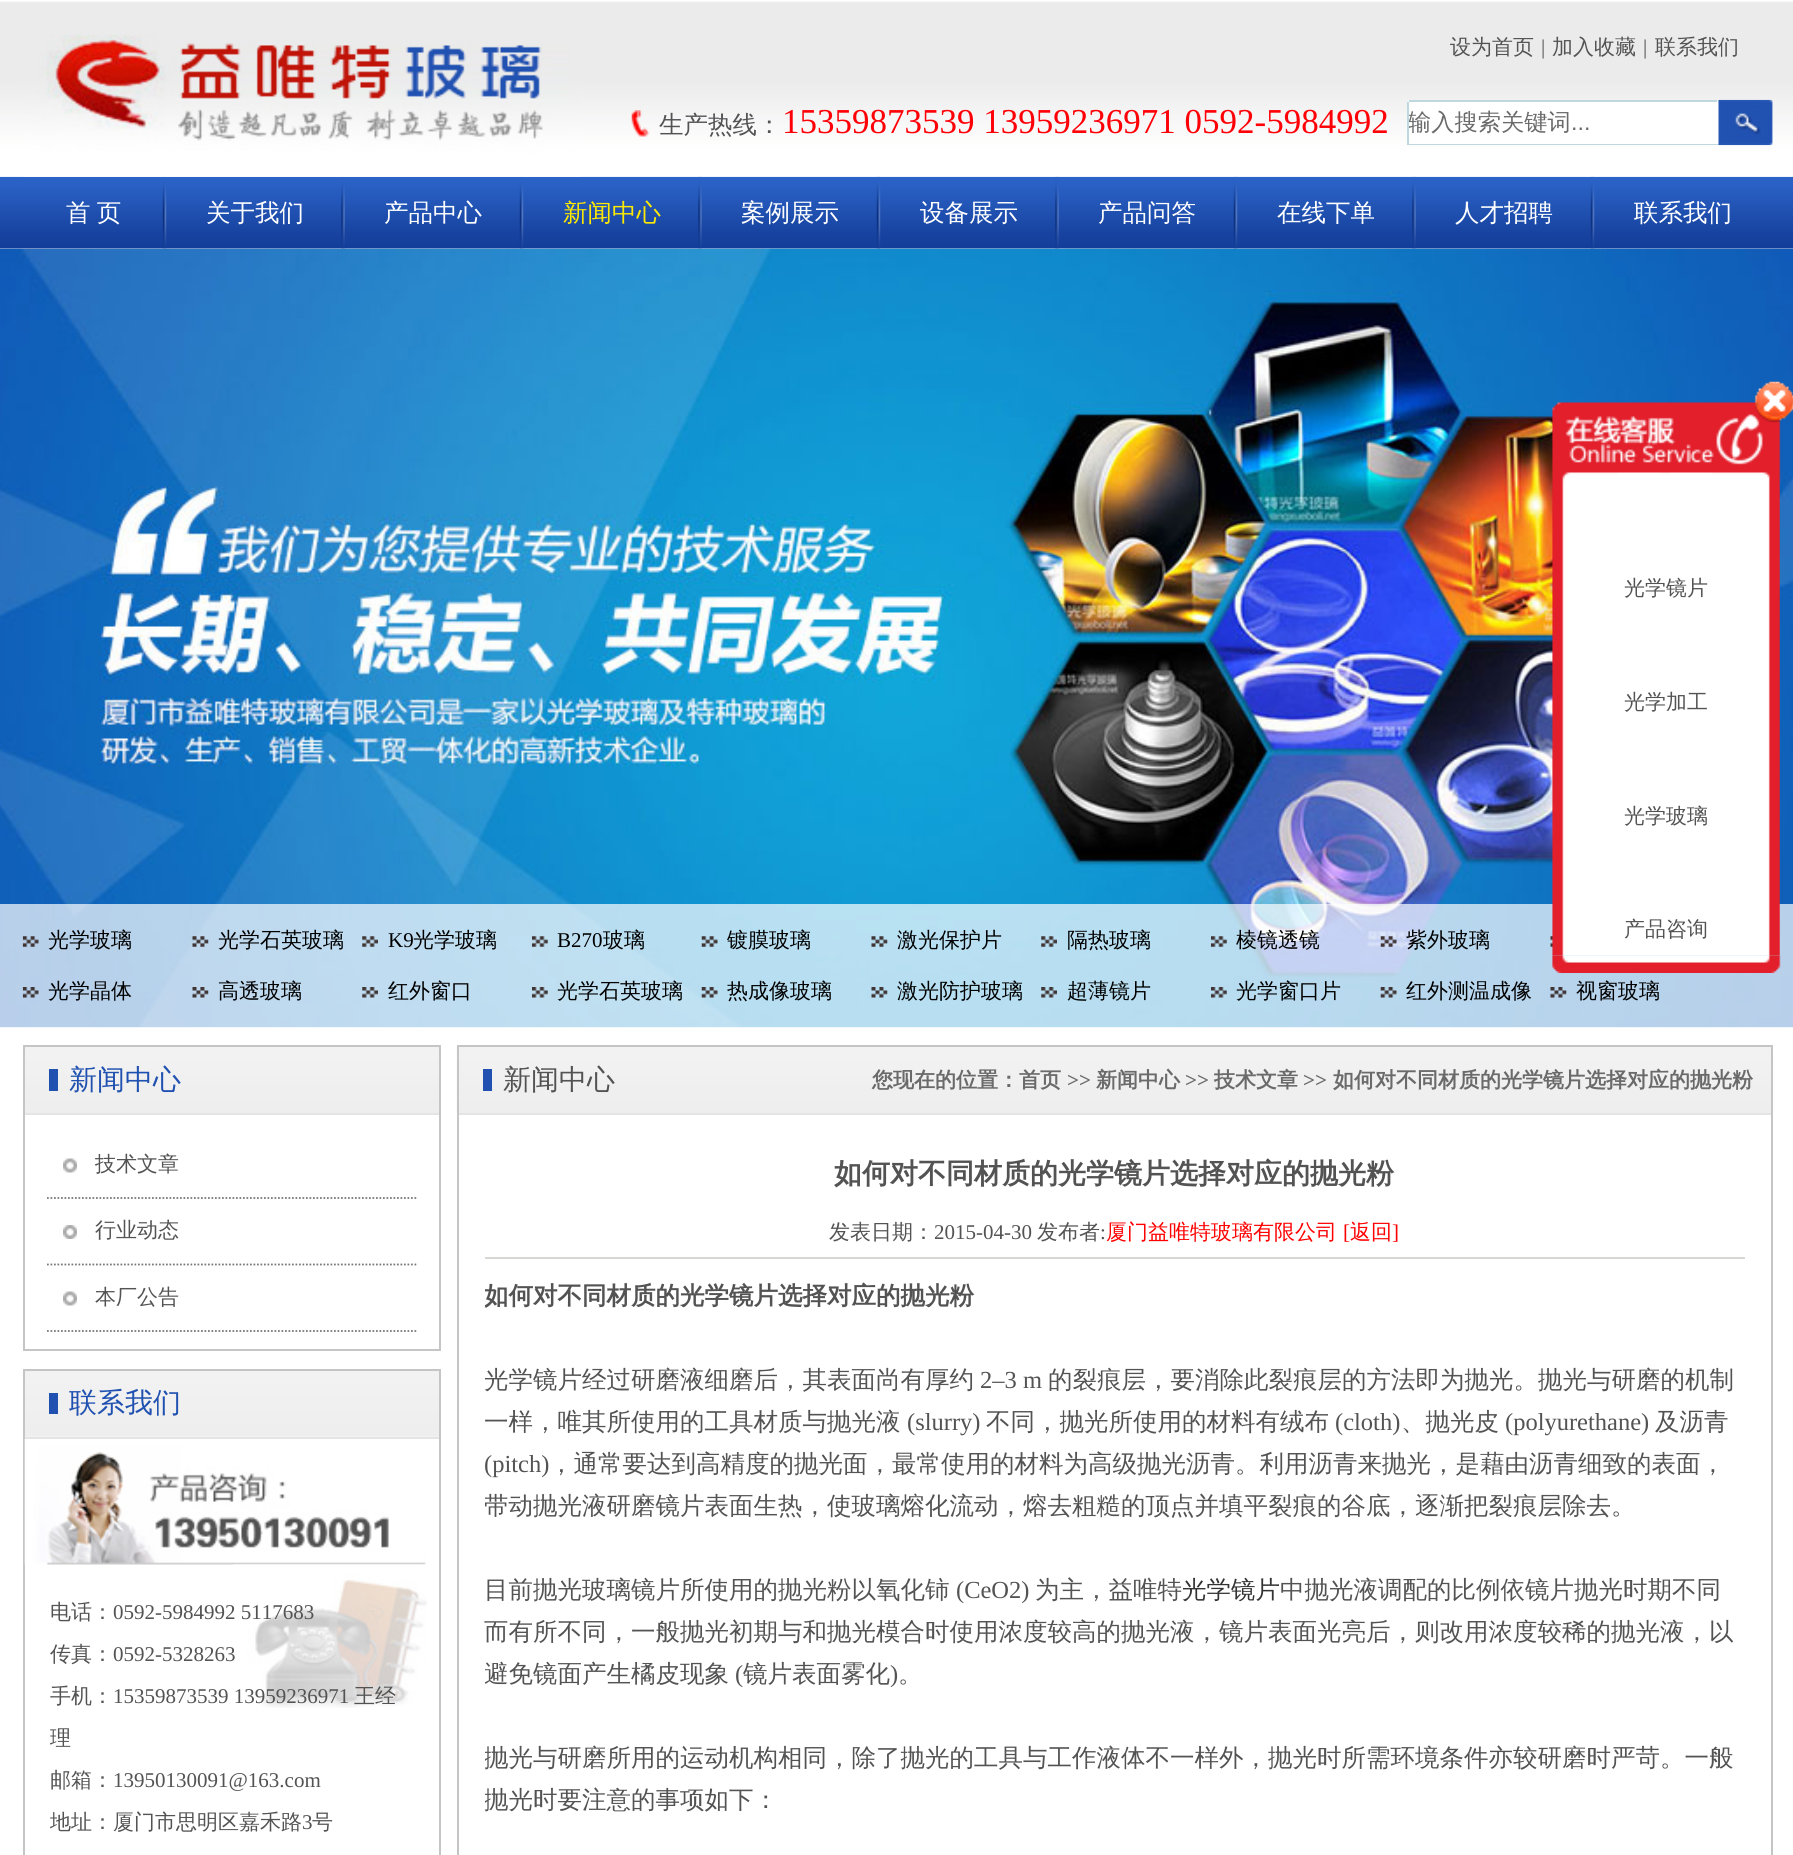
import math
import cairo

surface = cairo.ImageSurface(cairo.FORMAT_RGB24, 1793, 1855)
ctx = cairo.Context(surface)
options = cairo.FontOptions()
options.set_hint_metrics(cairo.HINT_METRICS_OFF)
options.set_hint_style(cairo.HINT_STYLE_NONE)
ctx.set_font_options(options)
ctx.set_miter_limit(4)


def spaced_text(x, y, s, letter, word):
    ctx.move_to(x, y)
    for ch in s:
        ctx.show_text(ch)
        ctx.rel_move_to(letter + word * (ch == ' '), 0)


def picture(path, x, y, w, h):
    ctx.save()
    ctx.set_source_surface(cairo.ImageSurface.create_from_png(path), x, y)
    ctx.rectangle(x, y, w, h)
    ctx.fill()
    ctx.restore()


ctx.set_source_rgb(1, 1, 1)
ctx.paint()
picture("img5.png", 0, 176, 1793, 73)
picture("img1.png", 0, 1, 1793, 176)
picture("img6.png", 162, 176, 5, 73)
picture("img7.png", 341, 176, 4, 73)
picture("img8.png", 519, 176, 5, 73)
picture("img2.png", 23, 34, 558, 143)
ctx.select_font_face("WenQuanYi Zen Hei Medium")
ctx.set_font_size(21)
ctx.set_source_rgb(0.325, 0.325, 0.325)
ctx.move_to(1450, 54)
ctx.show_text("设为首页")
ctx.select_font_face("Liberation Serif")
ctx.move_to(1541, 54)
ctx.show_text("|")
ctx.select_font_face("WenQuanYi Zen Hei Medium")
ctx.move_to(1552, 54)
ctx.show_text("加入收藏")
ctx.select_font_face("Liberation Serif")
ctx.move_to(1643, 54)
ctx.show_text("|")
ctx.select_font_face("WenQuanYi Zen Hei Medium")
ctx.move_to(1655, 54)
ctx.show_text("联系我们")
picture("img3.png", 631, 110, 19, 27)
ctx.set_font_size(24.5)
ctx.move_to(659, 133)
ctx.show_text("生产热线：")
ctx.select_font_face("Liberation Serif")
ctx.set_font_size(35)
ctx.set_source_rgb(1, 0, 0.031)
ctx.move_to(782, 133)
ctx.show_text("15359873539 13959236971 0592-5984992")
ctx.set_source_rgb(1, 1, 1)
ctx.new_path()
ctx.move_to(1411, 100)
ctx.line_to(1715, 100)
ctx.curve_to(1717, 100, 1719, 102, 1719, 104)
ctx.line_to(1719, 145)
ctx.line_to(1407, 145)
ctx.line_to(1407, 104)
ctx.curve_to(1407, 102, 1409, 100, 1411, 100)
ctx.close_path()
ctx.fill()
ctx.set_source_rgb(0.749, 0.847, 0.878)
ctx.rectangle(1409, 100, 308, 2)
ctx.fill()
ctx.rectangle(1407, 144, 312, 1)
ctx.fill()
ctx.rectangle(1407, 102, 2, 43)
ctx.fill()
ctx.save()
ctx.rectangle(1409, 107, 310, 31)
ctx.clip()
ctx.select_font_face("WenQuanYi Zen Hei Medium")
ctx.set_font_size(23.25)
ctx.set_source_rgb(0.416, 0.416, 0.416)
ctx.move_to(1408, 130)
ctx.show_text("输入搜索关键词")
ctx.restore()
ctx.select_font_face("Liberation Sans")
ctx.set_font_size(23.25)
ctx.set_source_rgb(0.416, 0.416, 0.416)
ctx.move_to(1571, 130)
ctx.show_text("...")
picture("img4.png", 1718, 99, 55, 47)
ctx.select_font_face("WenQuanYi Zen Hei Medium")
ctx.set_font_size(24.5)
ctx.set_source_rgb(1, 1, 1)
spaced_text(66, 221, "首 页", 0, -1)
ctx.move_to(206, 221)
ctx.show_text("关于我们")
ctx.move_to(384, 221)
ctx.show_text("产品中心")
picture("img7.png", 698, 176, 4, 73)
ctx.set_source_rgb(0.996, 0.914, 0.008)
ctx.move_to(563, 221)
ctx.show_text("新闻中心")
picture("img6.png", 876, 176, 5, 73)
ctx.set_source_rgb(1, 1, 1)
ctx.move_to(741, 221)
ctx.show_text("案例展示")
picture("img7.png", 1055, 176, 4, 73)
ctx.move_to(920, 221)
ctx.show_text("设备展示")
picture("img8.png", 1233, 176, 5, 73)
ctx.move_to(1098, 221)
ctx.show_text("产品问答")
picture("img7.png", 1412, 176, 4, 73)
ctx.move_to(1277, 221)
ctx.show_text("在线下单")
picture("img6.png", 1590, 176, 5, 73)
ctx.move_to(1455, 221)
ctx.show_text("人才招聘")
ctx.move_to(1634, 221)
ctx.show_text("联系我们")
picture("img9.png", 0, 248, 1793, 780)
ctx.set_source_rgba(1, 1, 1, 0.7)
ctx.rectangle(0, 904, 1793, 123)
ctx.fill()
picture("img10.png", 22, 936, 17, 11)
ctx.set_font_size(21)
ctx.set_source_rgb(0, 0, 0)
ctx.move_to(48, 947)
ctx.show_text("光学玻璃")
picture("img11.png", 192, 936, 17, 11)
ctx.move_to(218, 947)
ctx.show_text("光学石英玻璃")
picture("img12.png", 362, 936, 16, 11)
ctx.select_font_face("Liberation Serif")
ctx.move_to(388, 947)
ctx.show_text("K9")
ctx.select_font_face("WenQuanYi Zen Hei Medium")
ctx.move_to(413, 947)
ctx.show_text("光学玻璃")
picture("img13.png", 532, 936, 16, 11)
ctx.select_font_face("Liberation Serif")
ctx.move_to(557, 947)
ctx.show_text("B270")
ctx.select_font_face("WenQuanYi Zen Hei Medium")
ctx.move_to(603, 947)
ctx.show_text("玻璃")
picture("img14.png", 701, 936, 17, 11)
ctx.move_to(727, 947)
ctx.show_text("镀膜玻璃")
picture("img15.png", 871, 936, 17, 11)
ctx.move_to(897, 947)
ctx.show_text("激光保护片")
picture("img16.png", 1041, 936, 16, 11)
ctx.move_to(1067, 947)
ctx.show_text("隔热玻璃")
picture("img17.png", 1211, 936, 16, 11)
ctx.move_to(1236, 947)
ctx.show_text("棱镜透镜")
picture("img18.png", 1380, 936, 17, 11)
ctx.move_to(1406, 947)
ctx.show_text("紫外玻璃")
picture("img19.png", 1550, 936, 3, 11)
picture("img20.png", 22, 987, 17, 11)
ctx.move_to(48, 998)
ctx.show_text("光学晶体")
picture("img21.png", 192, 987, 17, 11)
ctx.move_to(218, 998)
ctx.show_text("高透玻璃")
picture("img22.png", 362, 987, 16, 11)
ctx.move_to(388, 998)
ctx.show_text("红外窗口")
picture("img23.png", 532, 987, 16, 11)
ctx.move_to(557, 998)
ctx.show_text("光学石英玻璃")
picture("img24.png", 701, 987, 17, 11)
ctx.move_to(727, 998)
ctx.show_text("热成像玻璃")
picture("img25.png", 871, 987, 17, 11)
ctx.move_to(897, 998)
ctx.show_text("激光防护玻璃")
picture("img26.png", 1041, 987, 16, 11)
ctx.move_to(1067, 998)
ctx.show_text("超薄镜片")
picture("img27.png", 1211, 987, 16, 11)
ctx.move_to(1236, 998)
ctx.show_text("光学窗口片")
picture("img28.png", 1380, 987, 17, 11)
ctx.move_to(1406, 998)
ctx.show_text("红外测温成像")
picture("img29.png", 1550, 987, 17, 11)
ctx.move_to(1576, 998)
ctx.show_text("视窗玻璃")
picture("img30.png", 25, 1047, 414, 66)
ctx.rectangle(24, 1046, 416, 304)
ctx.set_source_rgb(0.773, 0.773, 0.773)
ctx.stroke()
ctx.set_source_rgb(0.125, 0.318, 0.69)
ctx.rectangle(49, 1069, 9, 22)
ctx.fill()
ctx.set_source_rgb(0.894, 0.894, 0.894)
ctx.rectangle(25, 1113, 414, 2)
ctx.fill()
ctx.set_font_size(28)
ctx.set_source_rgb(0.125, 0.318, 0.69)
ctx.move_to(69, 1089)
ctx.show_text("新闻中心")
picture("img31.png", 63, 1158, 14, 15)
ctx.new_path()
ctx.move_to(47, 1198)
ctx.line_to(416.5, 1198)
ctx.set_source_rgb(0.471, 0.471, 0.471)
ctx.set_line_width(1.8)
ctx.set_dash([1.75, 1.75])
ctx.stroke()
ctx.set_font_size(21)
ctx.set_source_rgb(0.325, 0.325, 0.325)
ctx.move_to(95, 1171)
ctx.show_text("技术文章")
picture("img32.png", 63, 1225, 14, 14)
ctx.new_path()
ctx.move_to(47, 1264.5)
ctx.line_to(416.5, 1264.5)
ctx.set_source_rgb(0.471, 0.471, 0.471)
ctx.stroke()
ctx.set_source_rgb(0.325, 0.325, 0.325)
ctx.move_to(95, 1237)
ctx.show_text("行业动态")
picture("img31.png", 63, 1291, 14, 15)
ctx.new_path()
ctx.move_to(47, 1331)
ctx.line_to(416.5, 1331)
ctx.set_source_rgb(0.471, 0.471, 0.471)
ctx.stroke()
ctx.set_source_rgb(0.325, 0.325, 0.325)
ctx.move_to(95, 1304)
ctx.show_text("本厂公告")
picture("img33.png", 25, 1371, 414, 66)
ctx.rectangle(24, 1370, 416, 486)
ctx.set_source_rgb(0.773, 0.773, 0.773)
ctx.set_line_width(2)
ctx.set_dash([])
ctx.stroke()
ctx.set_source_rgb(0.125, 0.318, 0.69)
ctx.rectangle(49, 1393, 9, 21)
ctx.fill()
picture("img34.png", 24, 1438, 402, 127)
ctx.set_source_rgb(0.894, 0.894, 0.894)
ctx.rectangle(25, 1437, 414, 2)
ctx.fill()
ctx.set_font_size(28)
ctx.set_source_rgb(0.125, 0.318, 0.69)
ctx.move_to(69, 1412)
ctx.show_text("联系我们")
picture("img35.png", 233, 1564, 194, 144)
ctx.set_font_size(21)
ctx.set_source_rgb(0.325, 0.325, 0.325)
ctx.move_to(50, 1619)
ctx.show_text("电话：")
ctx.select_font_face("Liberation Serif")
ctx.move_to(113, 1619)
ctx.show_text("0592-5984992 5117683")
ctx.select_font_face("WenQuanYi Zen Hei Medium")
ctx.move_to(50, 1661)
ctx.show_text("传真：")
ctx.select_font_face("Liberation Serif")
ctx.move_to(113, 1661)
ctx.show_text("0592-5328263")
ctx.select_font_face("WenQuanYi Zen Hei Medium")
ctx.move_to(50, 1703)
ctx.show_text("手机：")
ctx.select_font_face("Liberation Serif")
ctx.move_to(113, 1703)
ctx.show_text("15359873539 13959236971")
ctx.select_font_face("WenQuanYi Zen Hei Medium")
ctx.move_to(354, 1703)
ctx.show_text("王经")
ctx.move_to(50, 1745)
ctx.show_text("理")
ctx.move_to(50, 1787)
ctx.show_text("邮箱：")
ctx.select_font_face("Liberation Serif")
ctx.move_to(113, 1787)
ctx.show_text("13950130091@163.com")
ctx.select_font_face("WenQuanYi Zen Hei Medium")
ctx.move_to(50, 1829)
ctx.show_text("地址：厦门市思明区嘉禾路")
ctx.select_font_face("Liberation Serif")
ctx.move_to(302, 1829)
ctx.show_text("3")
ctx.select_font_face("WenQuanYi Zen Hei Medium")
ctx.move_to(312, 1829)
ctx.show_text("号")
picture("img36.png", 456, 1046, 1315, 67)
ctx.rectangle(458, 1046, 1314, 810)
ctx.set_source_rgb(0.773, 0.773, 0.773)
ctx.stroke()
ctx.set_source_rgb(0.125, 0.318, 0.69)
ctx.rectangle(483, 1069, 9, 22)
ctx.fill()
ctx.set_source_rgb(0.894, 0.894, 0.894)
ctx.rectangle(459, 1113, 1312, 2)
ctx.fill()
ctx.set_font_size(28)
ctx.set_source_rgb(0.325, 0.325, 0.325)
ctx.move_to(503, 1089)
ctx.show_text("新闻中心")
ctx.select_font_face("WenQuanYi Zen Hei", cairo.FONT_SLANT_NORMAL, cairo.FONT_WEIGHT_BOLD)
ctx.set_font_size(21)
ctx.set_source_rgb(0.416, 0.416, 0.416)
ctx.move_to(872, 1087)
ctx.show_text("您现在的位置：首页")
ctx.select_font_face("Liberation Serif", cairo.FONT_SLANT_NORMAL, cairo.FONT_WEIGHT_BOLD)
ctx.move_to(1067, 1087)
ctx.show_text(">>")
ctx.select_font_face("WenQuanYi Zen Hei", cairo.FONT_SLANT_NORMAL, cairo.FONT_WEIGHT_BOLD)
ctx.move_to(1096, 1087)
ctx.show_text("新闻中心")
ctx.select_font_face("Liberation Serif", cairo.FONT_SLANT_NORMAL, cairo.FONT_WEIGHT_BOLD)
ctx.move_to(1185, 1087)
ctx.show_text(">>")
ctx.select_font_face("WenQuanYi Zen Hei", cairo.FONT_SLANT_NORMAL, cairo.FONT_WEIGHT_BOLD)
ctx.move_to(1214, 1087)
ctx.show_text("技术文章")
ctx.select_font_face("Liberation Serif", cairo.FONT_SLANT_NORMAL, cairo.FONT_WEIGHT_BOLD)
ctx.move_to(1303, 1087)
ctx.show_text(">>")
ctx.select_font_face("WenQuanYi Zen Hei", cairo.FONT_SLANT_NORMAL, cairo.FONT_WEIGHT_BOLD)
ctx.move_to(1333, 1087)
ctx.show_text("如何对不同材质的光学镜片选择对应的抛光粉")
ctx.set_font_size(28)
ctx.set_source_rgb(0.325, 0.325, 0.325)
ctx.move_to(834, 1183)
ctx.show_text("如何对不同材质的光学镜片选择对应的抛光粉")
ctx.set_source_rgb(0.847, 0.843, 0.824)
ctx.rectangle(485, 1257, 1260, 2)
ctx.fill()
ctx.select_font_face("WenQuanYi Zen Hei Medium")
ctx.set_font_size(21)
ctx.set_source_rgb(0.325, 0.325, 0.325)
ctx.move_to(829, 1239)
ctx.show_text("发表日期：")
ctx.select_font_face("Liberation Serif")
ctx.move_to(934, 1239)
ctx.show_text("2015-04-30")
ctx.select_font_face("WenQuanYi Zen Hei Medium")
ctx.move_to(1037, 1239)
ctx.show_text("发布者")
ctx.select_font_face("Liberation Serif")
ctx.move_to(1100, 1239)
ctx.show_text(":")
ctx.select_font_face("WenQuanYi Zen Hei Medium")
ctx.set_source_rgb(1, 0, 0)
ctx.move_to(1106, 1239)
ctx.show_text("厦门益唯特玻璃有限公司")
ctx.select_font_face("Liberation Serif")
ctx.move_to(1343, 1239)
ctx.show_text("[")
ctx.select_font_face("WenQuanYi Zen Hei Medium")
ctx.move_to(1350, 1239)
ctx.show_text("返回")
ctx.select_font_face("Liberation Serif")
ctx.move_to(1392, 1239)
ctx.show_text("]")
ctx.save()
ctx.rectangle(485, 1258, 1260, 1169)
ctx.clip()
ctx.select_font_face("WenQuanYi Zen Hei", cairo.FONT_SLANT_NORMAL, cairo.FONT_WEIGHT_BOLD)
ctx.set_font_size(24.5)
ctx.set_source_rgb(0.325, 0.325, 0.325)
ctx.move_to(484, 1304)
ctx.show_text("如何对不同材质的光学镜片选择对应的抛光粉")
ctx.select_font_face("WenQuanYi Zen Hei Medium")
ctx.move_to(484, 1388)
ctx.show_text("光学镜片经过研磨液细磨后，其表面尚有厚约")
ctx.restore()
ctx.set_font_size(24.5)
ctx.set_source_rgb(0.325, 0.325, 0.325)
ctx.move_to(980, 1388)
ctx.show_text("2–3 m")
ctx.select_font_face("WenQuanYi Zen Hei Medium")
ctx.move_to(1048, 1388)
ctx.show_text("的裂痕层，要消除此裂痕层的方法即为抛光。抛光与研磨的机制")
ctx.move_to(484, 1430)
ctx.show_text("一样，唯其所使用的工具材质与抛光液")
ctx.select_font_face("Liberation Serif")
ctx.move_to(907, 1430)
ctx.show_text("(slurry)")
ctx.select_font_face("WenQuanYi Zen Hei Medium")
ctx.move_to(986, 1430)
ctx.show_text("不同，抛光所使用的材料有绒布")
ctx.select_font_face("Liberation Serif")
ctx.move_to(1335, 1430)
ctx.show_text("(cloth)")
ctx.select_font_face("WenQuanYi Zen Hei Medium")
ctx.move_to(1401, 1430)
ctx.show_text("、抛光皮")
ctx.select_font_face("Liberation Serif")
ctx.move_to(1505, 1430)
ctx.show_text("(polyurethane)")
ctx.select_font_face("WenQuanYi Zen Hei Medium")
ctx.move_to(1655, 1430)
ctx.show_text("及沥青")
ctx.select_font_face("Liberation Serif")
ctx.move_to(484, 1472)
ctx.show_text("(pitch)")
ctx.select_font_face("WenQuanYi Zen Hei Medium")
ctx.move_to(549, 1472)
ctx.show_text("，通常要达到高精度的抛光面，最常使用的材料为高级抛光沥青。利用沥青来抛光，是藉由沥青细致的表面，")
ctx.save()
ctx.rectangle(485, 1258, 1260, 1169)
ctx.clip()
ctx.move_to(484, 1514)
ctx.show_text("带动抛光液研磨镜片表面生热，使玻璃熔化流动，熔去粗糙的顶点并填平裂痕的谷底，逐渐把裂痕层除去。")
ctx.restore()
ctx.move_to(484, 1598)
ctx.show_text("目前抛光玻璃镜片所使用的抛光粉以氧化铈")
ctx.select_font_face("Liberation Serif")
ctx.move_to(956, 1598)
ctx.show_text("(CeO2)")
ctx.select_font_face("WenQuanYi Zen Hei Medium")
ctx.move_to(1035, 1598)
ctx.show_text("为主，益唯特")
ctx.set_source_rgb(0.2, 0.2, 0.2)
ctx.move_to(1182, 1598)
ctx.show_text("光学镜片")
ctx.set_source_rgb(0.325, 0.325, 0.325)
ctx.move_to(1280, 1598)
ctx.show_text("中抛光液调配的比例依镜片抛光时期不同")
ctx.move_to(484, 1640)
ctx.show_text("而有所不同，一般抛光初期与和抛光模合时使用浓度较高的抛光液，镜片表面光亮后，则改用浓度较稀的抛光液，以")
ctx.save()
ctx.rectangle(485, 1258, 1260, 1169)
ctx.clip()
ctx.move_to(484, 1682)
ctx.show_text("避免镜面产生橘皮现象")
ctx.restore()
ctx.select_font_face("Liberation Serif")
ctx.move_to(735, 1682)
ctx.show_text("(")
ctx.select_font_face("WenQuanYi Zen Hei Medium")
ctx.move_to(743, 1682)
ctx.show_text("镜片表面雾化")
ctx.select_font_face("Liberation Serif")
ctx.move_to(890, 1682)
ctx.show_text(")")
ctx.select_font_face("WenQuanYi Zen Hei Medium")
ctx.move_to(898, 1682)
ctx.show_text("。")
ctx.save()
ctx.rectangle(485, 1258, 1260, 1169)
ctx.clip()
ctx.move_to(484, 1766)
ctx.show_text("抛光与研磨所用的运动机构相同，除了抛光的工具与工作液体不一样外，抛光时所需环境条件亦较研磨时严苛。一般")
ctx.move_to(484, 1808)
ctx.show_text("抛光时要注意的事项如下：")
ctx.restore()
picture("img37.png", 1552, 955, 229, 18)
picture("img38.png", 1552, 381, 241, 102)
picture("img39.png", 1552, 483, 228, 473)
ctx.set_font_size(21)
ctx.move_to(1624, 595)
ctx.show_text("光学镜片")
ctx.move_to(1624, 709)
ctx.show_text("光学加工")
ctx.move_to(1624, 823)
ctx.show_text("光学玻璃")
ctx.move_to(1624, 936)
ctx.show_text("产品咨询")
surface.write_to_png("page.png")
